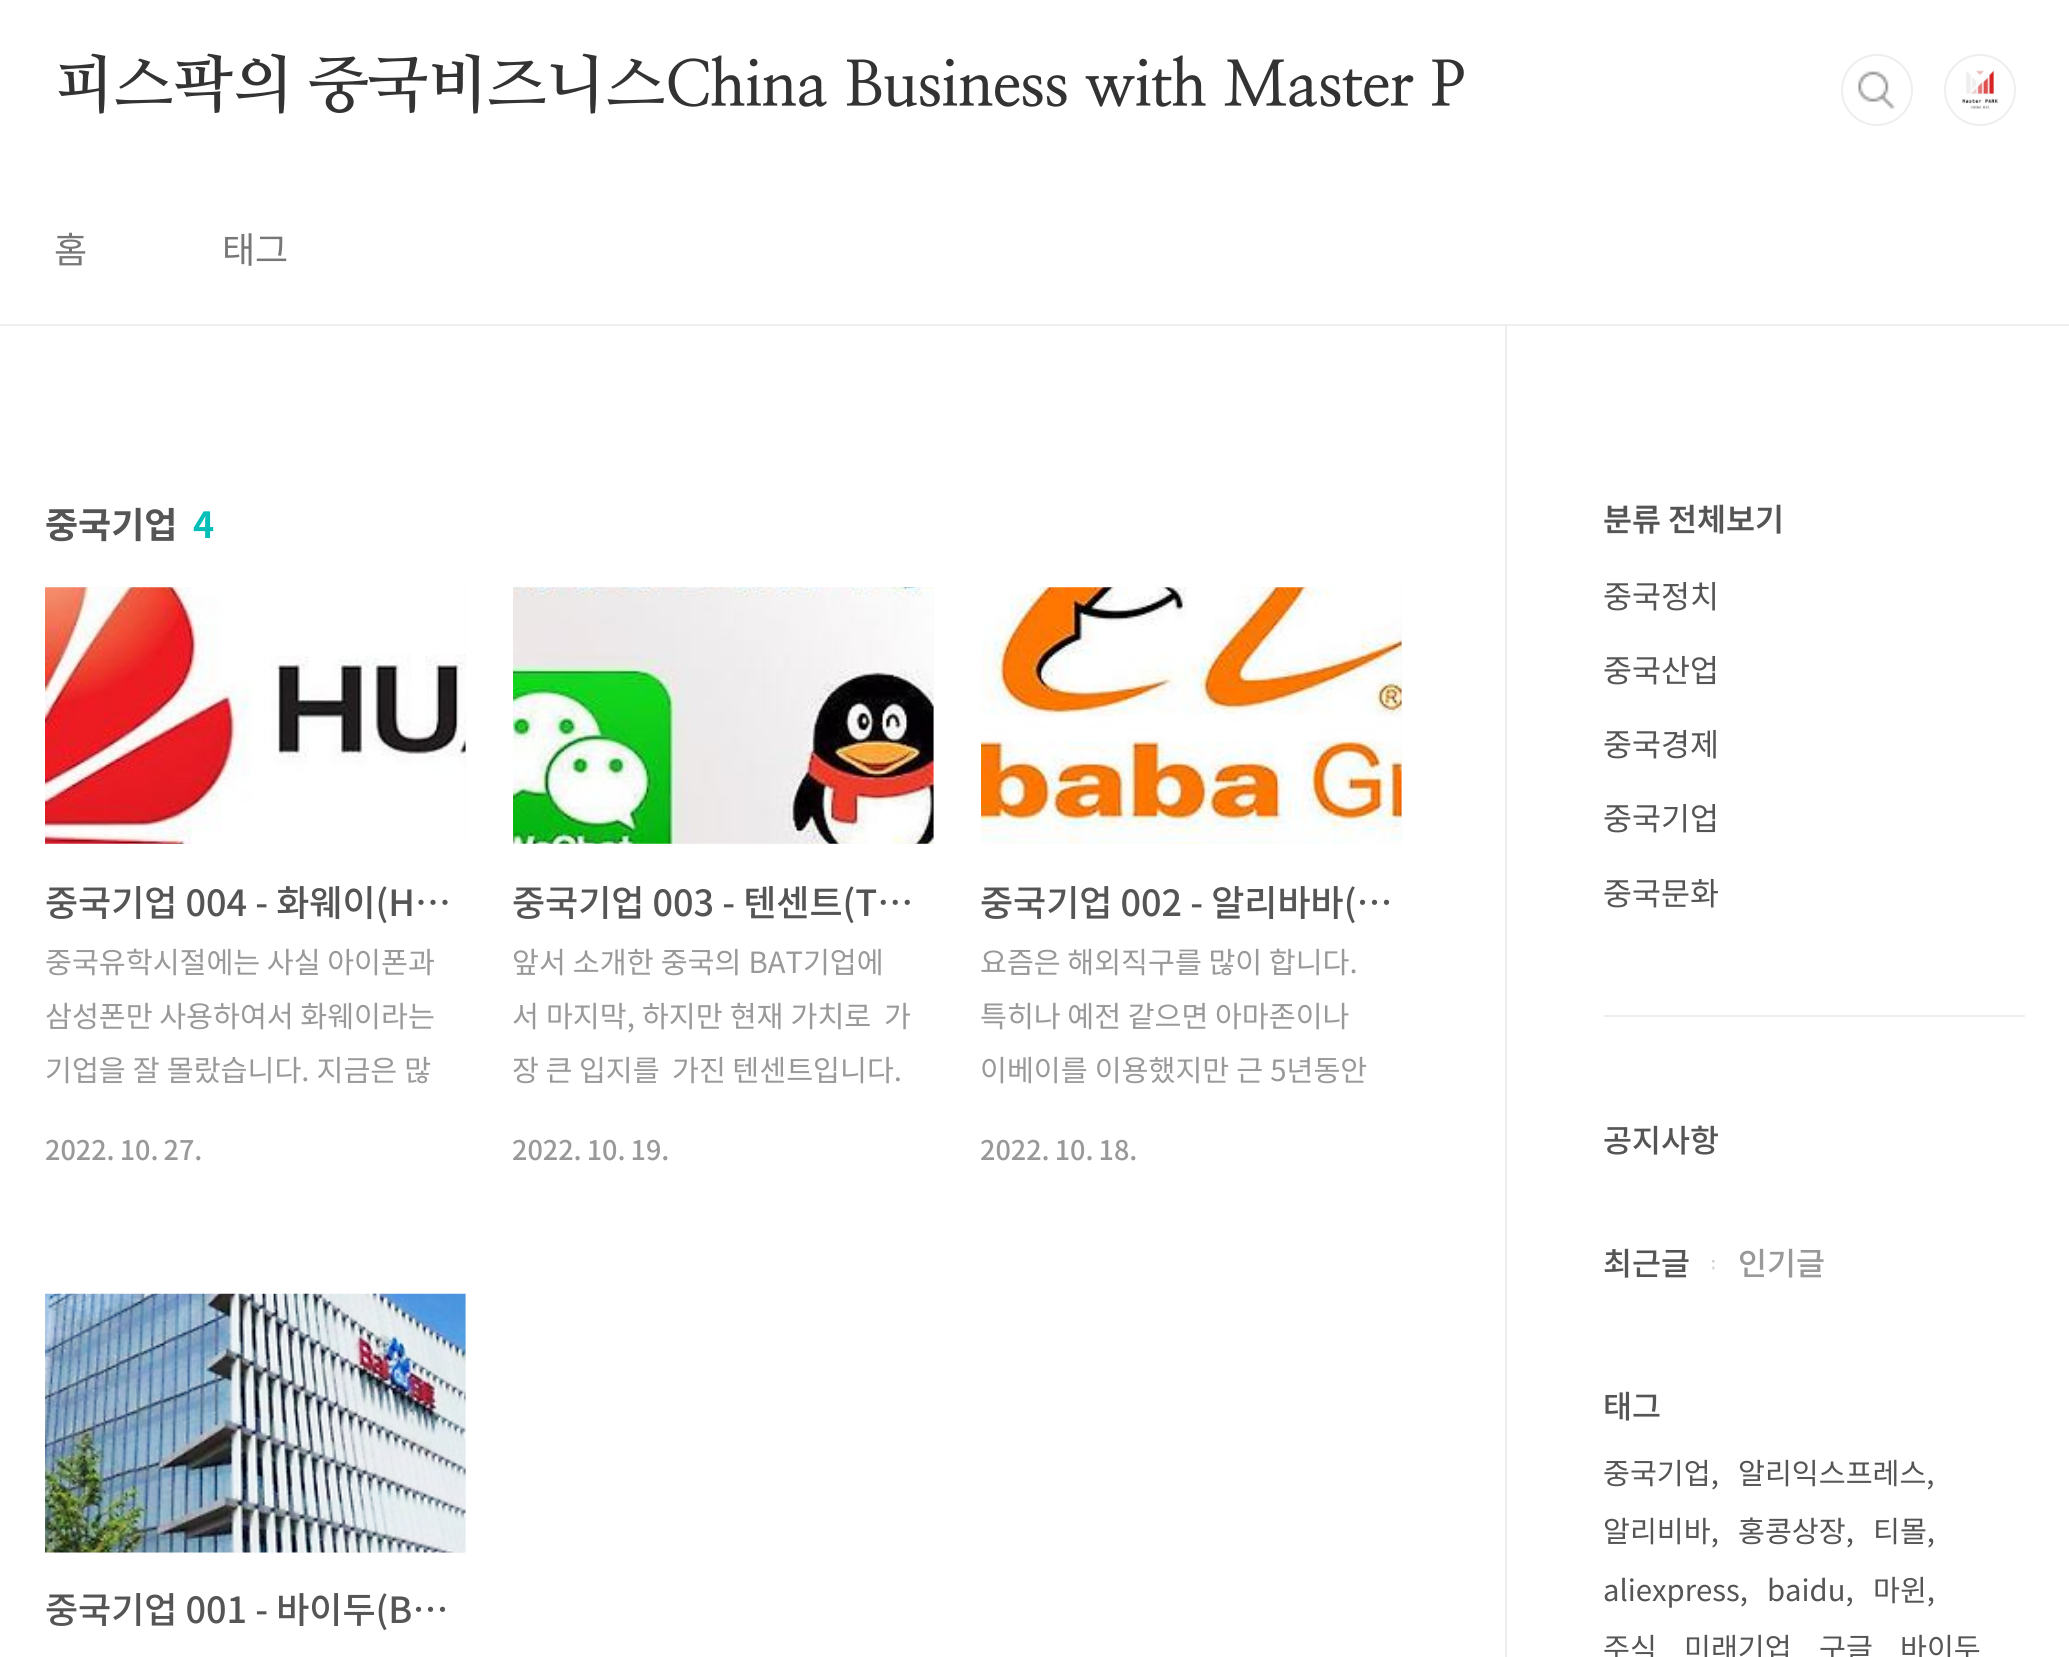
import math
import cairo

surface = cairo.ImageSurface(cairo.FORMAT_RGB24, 2069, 1657)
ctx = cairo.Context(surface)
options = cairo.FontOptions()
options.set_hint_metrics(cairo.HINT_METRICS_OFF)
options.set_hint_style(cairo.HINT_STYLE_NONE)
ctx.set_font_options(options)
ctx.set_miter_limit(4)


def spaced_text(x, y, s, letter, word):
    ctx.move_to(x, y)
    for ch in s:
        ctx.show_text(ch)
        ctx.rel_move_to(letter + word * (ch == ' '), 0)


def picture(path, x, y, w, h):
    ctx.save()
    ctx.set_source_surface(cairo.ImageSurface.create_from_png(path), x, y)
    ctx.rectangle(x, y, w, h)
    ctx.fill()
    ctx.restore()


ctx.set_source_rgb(1, 1, 1)
ctx.paint()
ctx.set_source_rgb(0.933, 0.933, 0.933)
ctx.rectangle(0, 324, 2069, 2)
ctx.fill()
ctx.select_font_face("NanumMyeongjo", cairo.FONT_SLANT_NORMAL, cairo.FONT_WEIGHT_BOLD)
ctx.set_font_size(63)
ctx.set_source_rgb(0.2, 0.2, 0.2)
spaced_text(54, 106, "피스팍의 중국비즈니스China Business with Master P", -0.45, 0)
picture("img1.png", 1858, 71, 37, 38)
ctx.arc(1877, 90, 35, 0, 2 * math.pi)
ctx.set_source_rgb(0.933, 0.933, 0.933)
ctx.stroke()
ctx.arc(1980, 90, 35, 0, 2 * math.pi)
ctx.stroke()
picture("img2.png", 1962, 70, 36, 39)
ctx.select_font_face("Noto Sans KR")
ctx.set_font_size(36)
ctx.set_source_rgb(0.467, 0.467, 0.467)
ctx.move_to(54, 263)
ctx.show_text("홈")
ctx.move_to(222, 263)
ctx.show_text("태그")
ctx.select_font_face("Noto Sans KR", cairo.FONT_SLANT_NORMAL, cairo.FONT_WEIGHT_BOLD)
ctx.set_source_rgb(0.333, 0.333, 0.333)
ctx.move_to(45, 538)
ctx.show_text("중국기업")
ctx.set_source_rgb(0.016, 0.745, 0.722)
ctx.move_to(193, 538)
ctx.show_text("4")
ctx.set_source_rgb(0.973, 0.973, 0.973)
ctx.rectangle(45, 587, 421, 257)
ctx.fill()
picture("img3.png", 45, 587, 421, 257)
ctx.select_font_face("Noto Sans KR Medium")
ctx.set_source_rgb(0.333, 0.333, 0.333)
ctx.move_to(45, 916)
ctx.show_text("중국기업 004 - 화웨이(H…")
ctx.select_font_face("Noto Sans KR")
ctx.set_font_size(29.25)
ctx.set_source_rgb(0.6, 0.6, 0.6)
ctx.move_to(45, 973)
ctx.show_text("중국유학시절에는 사실 아이폰과")
ctx.move_to(45, 1027)
ctx.show_text("삼성폰만 사용하여서 화웨이라는")
spaced_text(45, 1081, "기업을 잘 몰랐습니다. 지금은 많", 0, 0.5)
ctx.select_font_face("Noto Sans KR Medium")
ctx.set_font_size(27)
spaced_text(45, 1160, "2022. 10. 27.", 0, -1)
ctx.set_source_rgb(0.973, 0.973, 0.973)
ctx.rectangle(513, 587, 421, 257)
ctx.fill()
picture("img4.png", 513, 587, 421, 257)
ctx.set_font_size(36)
ctx.set_source_rgb(0.333, 0.333, 0.333)
ctx.move_to(512, 916)
ctx.show_text("중국기업 003 - 텐센트(T…")
ctx.select_font_face("Noto Sans KR")
ctx.set_font_size(29.25)
ctx.set_source_rgb(0.6, 0.6, 0.6)
spaced_text(512, 973, "앞서 소개한 중국의 BAT기업에", 0, 0.5)
spaced_text(512, 1027, "서 마지막, 하지만 현재 가치로", 0, 0.5)
spaced_text(884, 1027, "가", 0, 0.5)
ctx.move_to(512, 1081)
ctx.show_text("장 큰 입지를")
ctx.move_to(672, 1081)
ctx.show_text("가진 텐센트입니다.")
ctx.select_font_face("Noto Sans KR Medium")
ctx.set_font_size(27)
spaced_text(512, 1160, "2022. 10. 19.", 0, -1)
ctx.set_source_rgb(0.973, 0.973, 0.973)
ctx.rectangle(981, 587, 421, 257)
ctx.fill()
picture("img5.png", 981, 587, 421, 257)
ctx.set_font_size(36)
ctx.set_source_rgb(0.333, 0.333, 0.333)
ctx.move_to(980, 916)
ctx.show_text("중국기업 002 - 알리바바(…")
ctx.select_font_face("Noto Sans KR")
ctx.set_font_size(29.25)
ctx.set_source_rgb(0.6, 0.6, 0.6)
ctx.move_to(980, 973)
ctx.show_text("요즘은 해외직구를 많이 합니다.")
ctx.move_to(980, 1027)
ctx.show_text("특히나 예전 같으면 아마존이나")
spaced_text(980, 1081, "이베이를 이용했지만 근 5년동안", 0, 0.5)
ctx.select_font_face("Noto Sans KR Medium")
ctx.set_font_size(27)
spaced_text(980, 1160, "2022. 10. 18.", 0, -1)
ctx.set_source_rgb(0.973, 0.973, 0.973)
ctx.rectangle(45, 1294, 421, 259)
ctx.fill()
picture("img6.png", 45, 1293, 421, 260)
ctx.set_font_size(36)
ctx.set_source_rgb(0.333, 0.333, 0.333)
ctx.move_to(45, 1623)
ctx.show_text("중국기업 001 - 바이두(B…")
ctx.set_source_rgb(0.933, 0.933, 0.933)
ctx.rectangle(1505, 326, 2, 1331)
ctx.fill()
ctx.select_font_face("Noto Sans KR SemiBold")
ctx.set_font_size(31.5)
ctx.set_source_rgb(0.333, 0.333, 0.333)
ctx.move_to(1603, 531)
ctx.show_text("분류 전체보기")
ctx.select_font_face("Noto Sans KR")
ctx.move_to(1603, 608)
ctx.show_text("중국정치")
ctx.move_to(1603, 682)
ctx.show_text("중국산업")
ctx.move_to(1603, 756)
ctx.show_text("중국경제")
ctx.move_to(1603, 830)
ctx.show_text("중국기업")
ctx.move_to(1603, 905)
ctx.show_text("중국문화")
ctx.set_source_rgb(0.933, 0.933, 0.933)
ctx.rectangle(1604, 1015, 421, 2)
ctx.fill()
ctx.select_font_face("Noto Sans KR Medium")
ctx.set_source_rgb(0.333, 0.333, 0.333)
ctx.move_to(1603, 1152)
ctx.show_text("공지사항")
ctx.move_to(1603, 1275)
ctx.show_text("최근글")
picture("img7.png", 1712, 1260, 3, 10)
ctx.set_source_rgb(0.6, 0.6, 0.6)
ctx.move_to(1738, 1275)
ctx.show_text("인기글")
ctx.set_source_rgb(0.333, 0.333, 0.333)
ctx.move_to(1603, 1418)
ctx.show_text("태그")
ctx.select_font_face("Noto Sans KR")
ctx.set_font_size(29.25)
ctx.move_to(1603, 1484)
ctx.show_text("중국기업,")
ctx.move_to(1738, 1484)
ctx.show_text("알리익스프레스,")
ctx.move_to(1603, 1542)
ctx.show_text("알리비바,")
ctx.move_to(1738, 1542)
ctx.show_text("홍콩상장,")
ctx.move_to(1873, 1542)
ctx.show_text("티몰,")
ctx.move_to(1603, 1601)
ctx.show_text("aliexpress,")
ctx.move_to(1767, 1601)
ctx.show_text("baidu,")
ctx.move_to(1873, 1601)
ctx.show_text("마윈,")
ctx.move_to(1603, 1659)
ctx.show_text("주식")
ctx.move_to(1684, 1659)
ctx.show_text("미래기업")
ctx.move_to(1819, 1659)
ctx.show_text("구글")
ctx.move_to(1900, 1659)
ctx.show_text("바이두")
surface.write_to_png("page.png")
